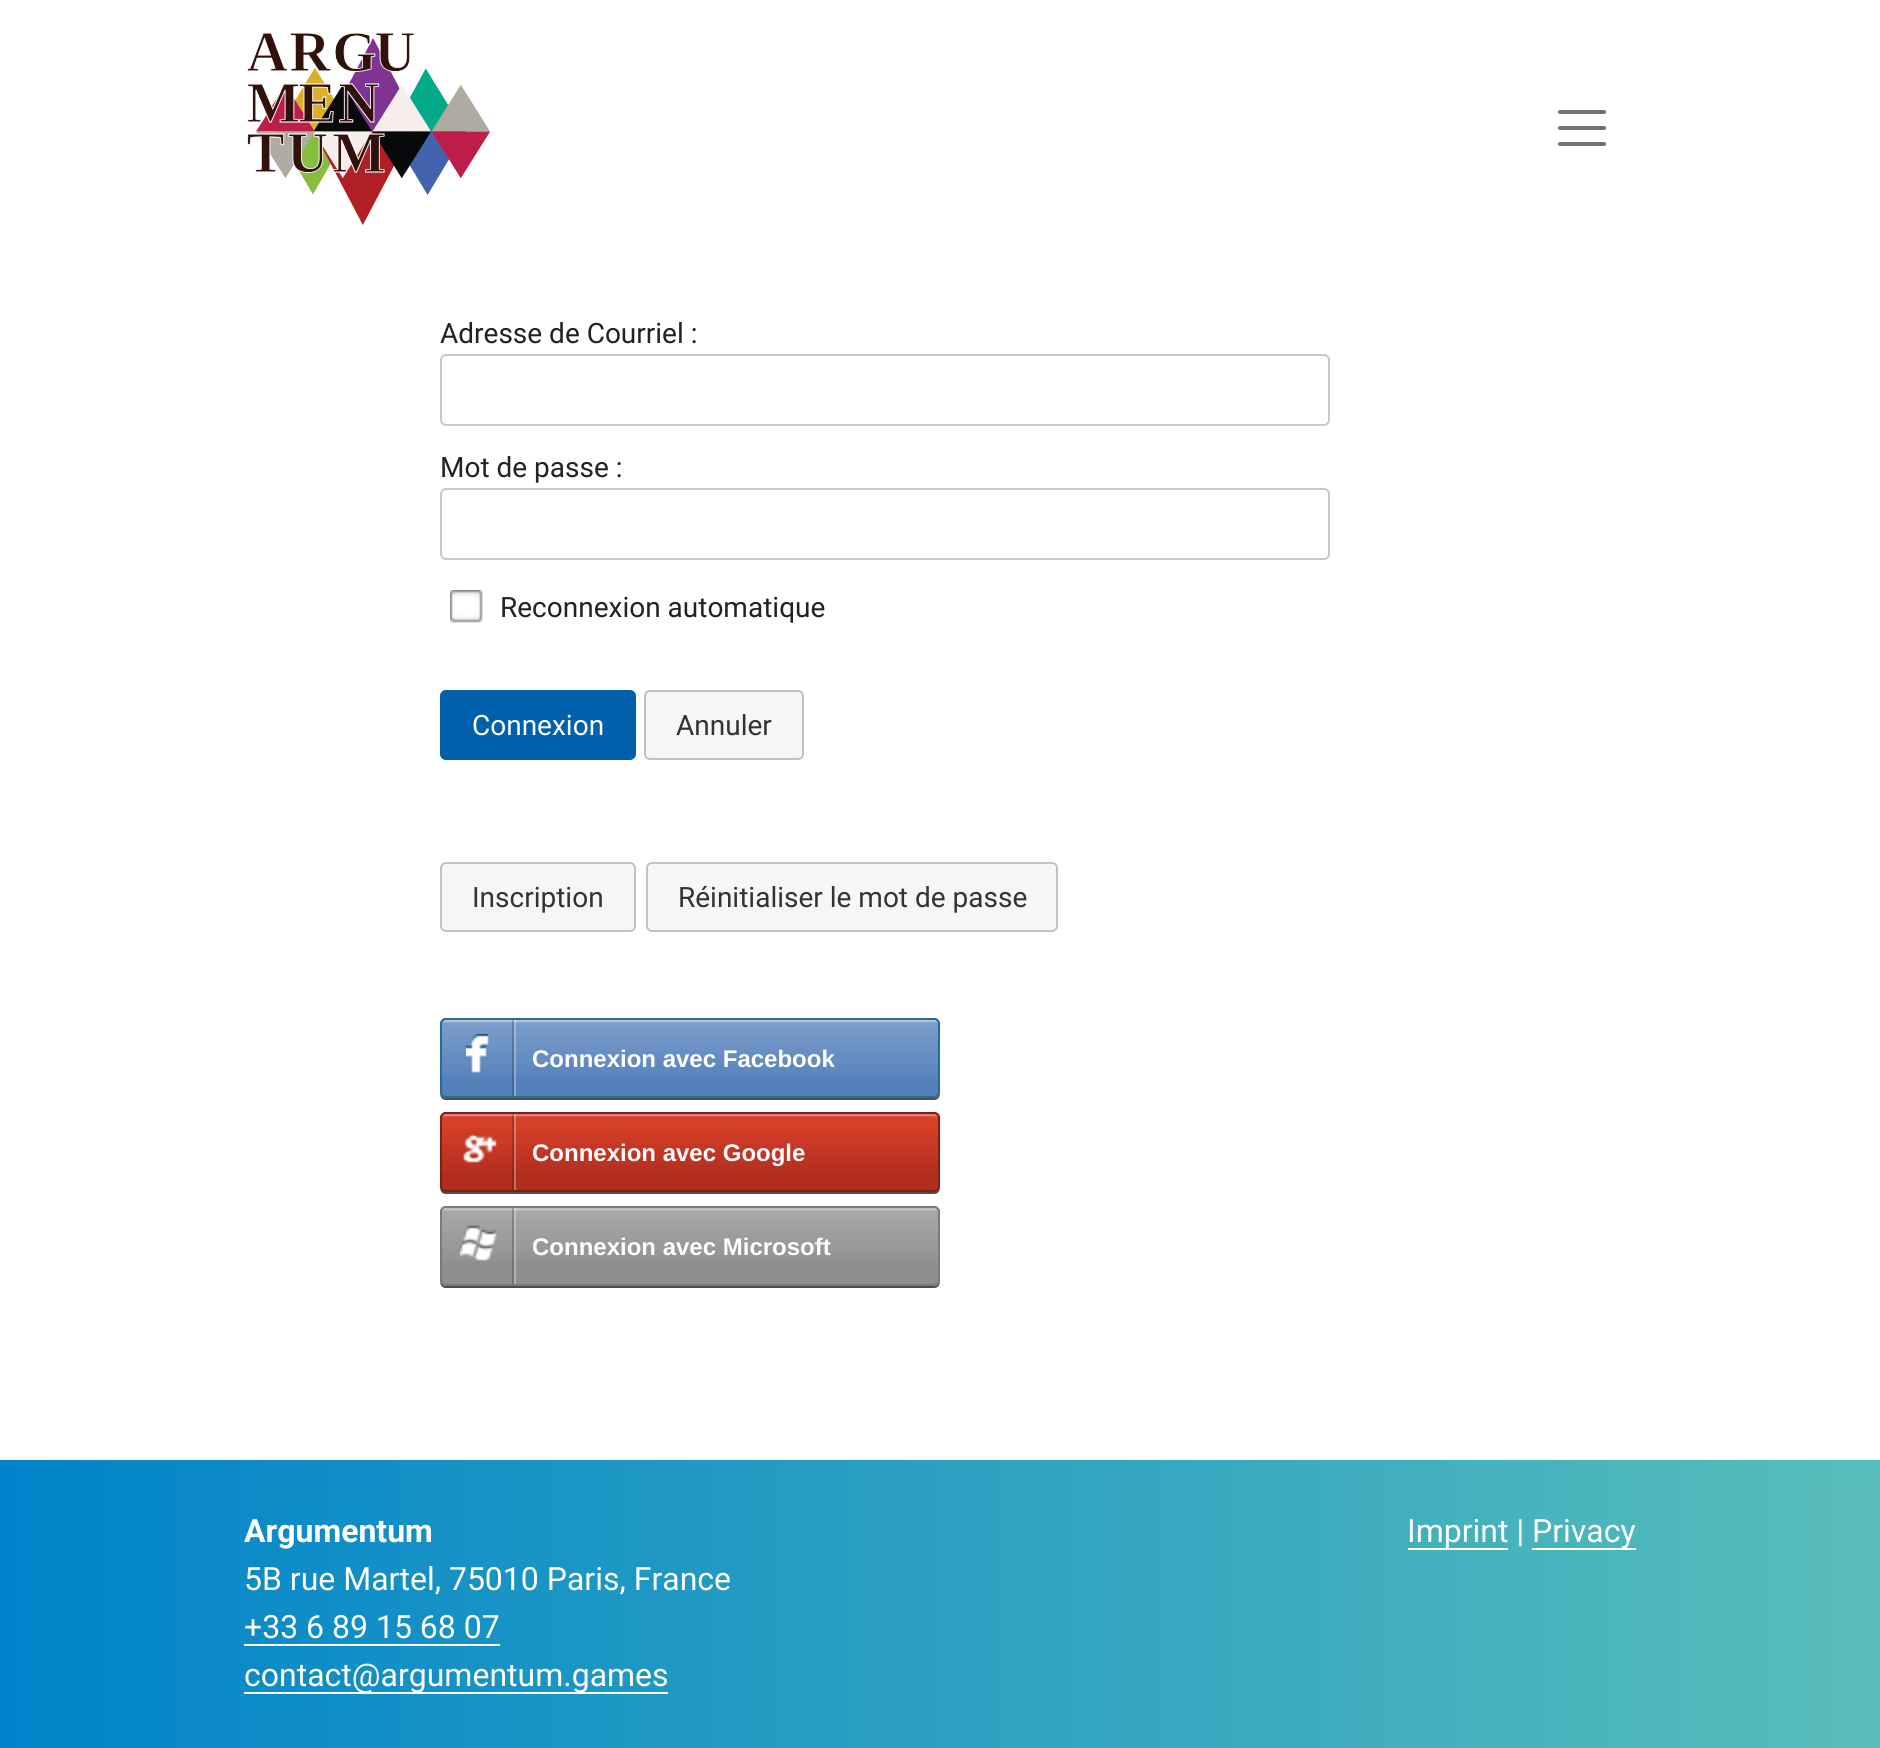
import math
import cairo

surface = cairo.ImageSurface(cairo.FORMAT_RGB24, 1880, 1748)
ctx = cairo.Context(surface)
options = cairo.FontOptions()
options.set_hint_metrics(cairo.HINT_METRICS_OFF)
options.set_hint_style(cairo.HINT_STYLE_NONE)
ctx.set_font_options(options)
ctx.set_miter_limit(4)


def round_rect(x, y, w, h, r):
    ctx.new_sub_path()
    for i, (u, v) in enumerate([(x + w - r, y + h - r), (x + r, y + h - r), (x + r, y + r), (x + w - r, y + r)]):
        ctx.arc(u, v, r, i * math.pi / 2, (i + 1) * math.pi / 2)
    ctx.close_path()


def picture(path, x, y, w, h):
    ctx.save()
    ctx.set_source_surface(cairo.ImageSurface.create_from_png(path), x, y)
    ctx.rectangle(x, y, w, h)
    ctx.fill()
    ctx.restore()


ctx.set_source_rgb(1, 1, 1)
ctx.paint()
picture("img1.png", 247, 33, 243, 192)
ctx.new_path()
ctx.move_to(1560, 112)
ctx.line_to(1604, 112)
ctx.move_to(1560, 128)
ctx.line_to(1604, 128)
ctx.move_to(1560, 144)
ctx.line_to(1604, 144)
ctx.set_source_rgb(0.451, 0.451, 0.451)
ctx.set_line_width(4)
ctx.set_line_cap(cairo.LINE_CAP_ROUND)
ctx.stroke()
ctx.select_font_face("Roboto")
ctx.set_font_size(28)
ctx.set_source_rgb(0.133, 0.133, 0.133)
ctx.move_to(440, 343)
ctx.show_text("Adresse de Courriel :")
round_rect(441, 355, 888, 70, 5)
ctx.set_source_rgb(0.788, 0.788, 0.788)
ctx.set_line_width(2)
ctx.set_line_cap(cairo.LINE_CAP_BUTT)
ctx.stroke()
ctx.set_source_rgb(0.133, 0.133, 0.133)
ctx.move_to(440, 477)
ctx.show_text("Mot de passe :")
round_rect(441, 489, 888, 70, 5)
ctx.set_source_rgb(0.788, 0.788, 0.788)
ctx.stroke()
picture("img2.png", 450, 590, 33, 33)
ctx.set_source_rgb(0.133, 0.133, 0.133)
ctx.move_to(500, 617)
ctx.show_text("Reconnexion automatique")
ctx.set_source_rgb(0, 0.376, 0.675)
round_rect(441, 691, 194, 68, 5)
ctx.fill_preserve()
ctx.stroke()
ctx.set_source_rgb(1, 1, 1)
ctx.move_to(472, 735)
ctx.show_text("Connexion")
ctx.set_source_rgb(0.961, 0.961, 0.961)
round_rect(645, 691, 158, 68, 5)
ctx.fill_preserve()
ctx.set_source_rgb(0.761, 0.761, 0.761)
ctx.stroke()
ctx.set_source_rgb(0.2, 0.2, 0.2)
ctx.move_to(676, 735)
ctx.show_text("Annuler")
ctx.set_source_rgb(0.961, 0.961, 0.961)
round_rect(441, 863, 194, 68, 5)
ctx.fill_preserve()
ctx.set_source_rgb(0.761, 0.761, 0.761)
ctx.stroke()
ctx.set_source_rgb(0.2, 0.2, 0.2)
ctx.move_to(472, 907)
ctx.show_text("Inscription")
ctx.set_source_rgb(0.961, 0.961, 0.961)
round_rect(647, 863, 410, 68, 5)
ctx.fill_preserve()
ctx.set_source_rgb(0.761, 0.761, 0.761)
ctx.stroke()
ctx.set_source_rgb(0.2, 0.2, 0.2)
ctx.move_to(678, 907)
ctx.show_text("Réinitialiser le mot de passe")
ctx.set_source_rgb(0.302, 0.302, 0.302)
ctx.new_path()
ctx.move_to(440, 1092)
ctx.curve_to(440, 1096, 441, 1100, 446, 1100)
ctx.line_to(934, 1100)
ctx.curve_to(939, 1100, 940, 1096, 940, 1092)
ctx.curve_to(940, 1095, 937, 1098, 934, 1098)
ctx.line_to(446, 1098)
ctx.curve_to(443, 1098, 440, 1095, 440, 1092)
ctx.close_path()
ctx.fill()
ctx.set_source_rgb(0.333, 0.506, 0.733)
round_rect(440, 1018, 500, 80, 6)
ctx.fill()
picture("img3.png", 440, 1020, 500, 58)
round_rect(441, 1019, 498, 78, 5)
ctx.set_source_rgb(0.157, 0.424, 0.576)
ctx.stroke()
ctx.set_source_rgba(1, 1, 1, 0.3)
ctx.rectangle(514, 1020, 2, 76)
ctx.fill()
ctx.set_source_rgba(0, 0, 0, 0.2)
ctx.rectangle(512, 1020, 2, 76)
ctx.fill()
picture("img4.png", 466, 1034, 23, 39)
ctx.select_font_face("Liberation Sans", cairo.FONT_SLANT_NORMAL, cairo.FONT_WEIGHT_BOLD)
ctx.set_font_size(24)
ctx.set_source_rgb(1, 1, 1)
ctx.move_to(532, 1067)
ctx.show_text("Connexion avec Facebook")
ctx.set_source_rgb(0.302, 0.302, 0.302)
ctx.new_path()
ctx.move_to(440, 1186)
ctx.curve_to(440, 1190, 441, 1194, 446, 1194)
ctx.line_to(934, 1194)
ctx.curve_to(939, 1194, 940, 1190, 940, 1186)
ctx.curve_to(940, 1189, 937, 1192, 934, 1192)
ctx.line_to(446, 1192)
ctx.curve_to(443, 1192, 440, 1189, 440, 1186)
ctx.close_path()
ctx.fill()
ctx.set_source_rgb(0.694, 0.18, 0.118)
round_rect(440, 1112, 500, 80, 6)
ctx.fill()
picture("img5.png", 440, 1113, 500, 58)
round_rect(441, 1113, 498, 78, 5)
ctx.set_source_rgb(0.51, 0.118, 0.086)
ctx.stroke()
ctx.set_source_rgba(1, 1, 1, 0.3)
ctx.rectangle(514, 1114, 2, 76)
ctx.fill()
ctx.set_source_rgba(0, 0, 0, 0.2)
ctx.rectangle(512, 1114, 2, 76)
ctx.fill()
picture("img6.png", 463, 1133, 34, 30)
ctx.set_source_rgb(1, 1, 1)
ctx.move_to(532, 1161)
ctx.show_text("Connexion avec Google")
ctx.set_source_rgb(0.302, 0.302, 0.302)
ctx.new_path()
ctx.move_to(440, 1280)
ctx.curve_to(440, 1284, 441, 1288, 446, 1288)
ctx.line_to(934, 1288)
ctx.curve_to(939, 1288, 940, 1284, 940, 1280)
ctx.curve_to(940, 1283, 937, 1286, 934, 1286)
ctx.line_to(446, 1286)
ctx.curve_to(443, 1286, 440, 1283, 440, 1280)
ctx.close_path()
ctx.fill()
ctx.set_source_rgb(0.561, 0.561, 0.561)
round_rect(440, 1206, 500, 80, 6)
ctx.fill()
picture("img7.png", 440, 1207, 500, 53)
round_rect(441, 1207, 498, 78, 5)
ctx.set_source_rgb(0.478, 0.478, 0.478)
ctx.stroke()
ctx.set_source_rgba(1, 1, 1, 0.3)
ctx.rectangle(514, 1208, 2, 76)
ctx.fill()
ctx.set_source_rgba(0, 0, 0, 0.2)
ctx.rectangle(512, 1208, 2, 76)
ctx.fill()
picture("img8.png", 460, 1225, 37, 36)
ctx.set_source_rgb(1, 1, 1)
ctx.move_to(532, 1255)
ctx.show_text("Connexion avec Microsoft")
gradient = cairo.LinearGradient(0, 1604, 1880, 1604)
gradient.add_color_stop_rgba(0, 0, 0.514, 0.788, 1)
gradient.add_color_stop_rgba(1, 0.345, 0.745, 0.733, 1)
ctx.set_source(gradient)
ctx.rectangle(0, 1460, 1880, 288)
ctx.fill()
ctx.select_font_face("Roboto", cairo.FONT_SLANT_NORMAL, cairo.FONT_WEIGHT_BOLD)
ctx.set_font_size(32)
ctx.set_source_rgb(1, 1, 1)
ctx.move_to(244, 1542)
ctx.show_text("Argumentum")
ctx.select_font_face("Roboto")
ctx.move_to(244, 1590)
ctx.show_text("5B rue Martel, 75010 Paris, France")
ctx.move_to(244, 1638)
ctx.show_text("+33 6 89 15 68 07")
ctx.rectangle(244, 1644, 256, 2)
ctx.fill()
ctx.rectangle(244, 1692, 424, 2)
ctx.fill()
ctx.move_to(244, 1686)
ctx.show_text("contact@argumentum.games")
ctx.rectangle(1408, 1548, 100, 2)
ctx.fill()
ctx.move_to(1407, 1542)
ctx.show_text("Imprint |")
ctx.rectangle(1532, 1548, 104, 2)
ctx.fill()
ctx.move_to(1532, 1542)
ctx.show_text("Privacy")
surface.write_to_png("page.png")
